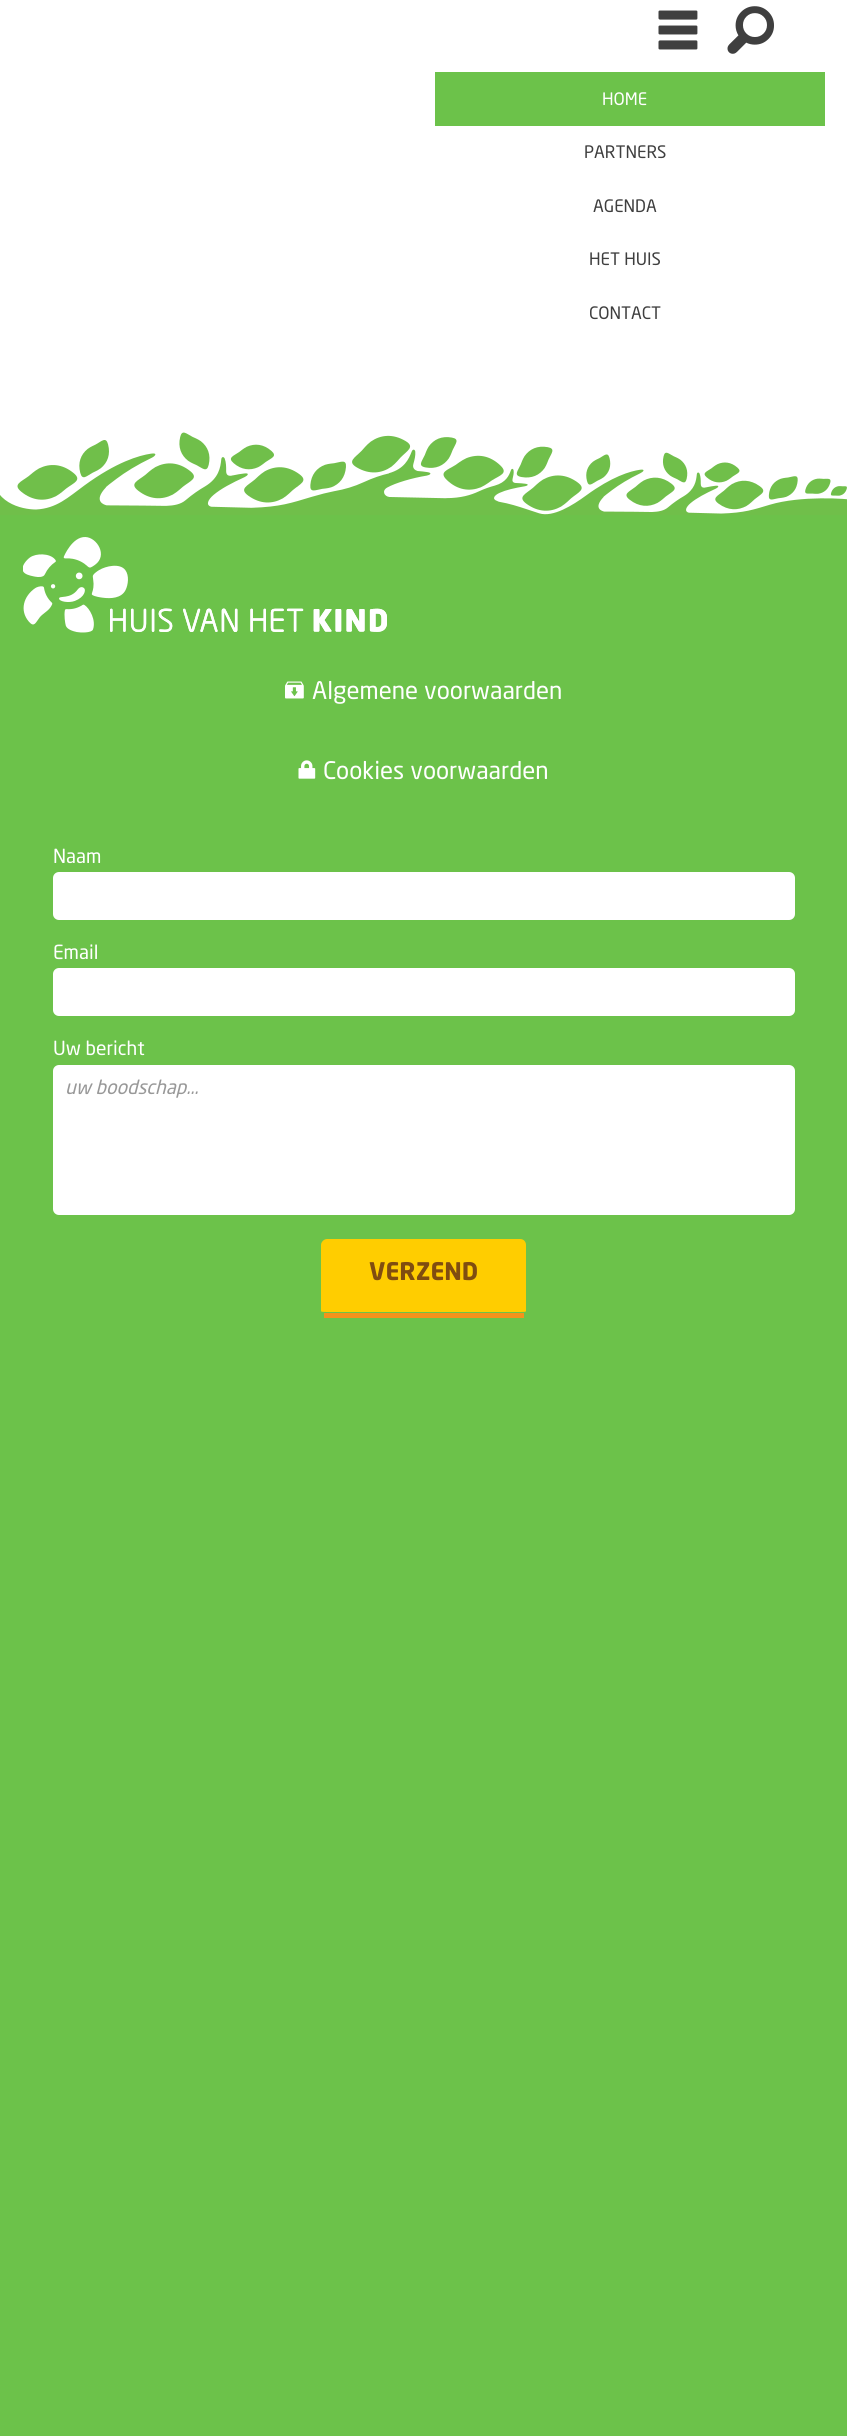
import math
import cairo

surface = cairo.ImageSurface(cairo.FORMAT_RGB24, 847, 2436)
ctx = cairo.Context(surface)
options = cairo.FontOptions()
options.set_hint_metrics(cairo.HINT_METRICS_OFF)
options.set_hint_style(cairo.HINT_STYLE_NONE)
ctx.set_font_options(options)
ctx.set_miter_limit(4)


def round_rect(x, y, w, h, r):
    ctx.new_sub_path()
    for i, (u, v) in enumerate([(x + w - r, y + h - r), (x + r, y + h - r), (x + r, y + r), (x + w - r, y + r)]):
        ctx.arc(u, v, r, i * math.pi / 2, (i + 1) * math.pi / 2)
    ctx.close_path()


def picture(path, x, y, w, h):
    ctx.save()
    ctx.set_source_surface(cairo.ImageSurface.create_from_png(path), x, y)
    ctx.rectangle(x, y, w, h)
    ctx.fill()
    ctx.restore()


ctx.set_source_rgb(0.424, 0.761, 0.29)
ctx.paint()
ctx.set_source_rgb(1, 1, 1)
ctx.rectangle(0, 0, 847, 515)
ctx.fill()
picture("img1.png", 658, 10, 40, 40)
picture("img2.png", 727, 6, 47, 48)
ctx.set_source_rgb(0.424, 0.761, 0.29)
ctx.rectangle(435, 72, 390, 54)
ctx.fill()
ctx.select_font_face("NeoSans")
ctx.set_font_size(17)
ctx.set_source_rgb(1, 1, 1)
ctx.move_to(602, 105)
ctx.show_text("HOME")
ctx.set_source_rgb(0.247, 0.247, 0.247)
ctx.move_to(584, 158)
ctx.show_text("PARTNERS")
ctx.move_to(593, 212)
ctx.show_text("AGENDA")
ctx.move_to(589, 265)
ctx.show_text("HET HUIS")
ctx.move_to(589, 319)
ctx.show_text("CONTACT")
picture("img3.png", 0, 432, 847, 83)
picture("img4.png", 23, 537, 364, 96)
picture("img5.png", 285, 681, 19, 18)
ctx.set_font_size(24)
ctx.set_source_rgb(1, 1, 1)
ctx.move_to(312, 699)
ctx.show_text("Algemene voorwaarden")
picture("img6.png", 298, 760, 18, 19)
ctx.move_to(323, 779)
ctx.show_text("Cookies voorwaarden")
ctx.set_font_size(19.25)
ctx.move_to(53, 863)
ctx.show_text("Naam")
round_rect(53, 872, 742, 48, 6)
ctx.fill()
ctx.move_to(53, 959)
ctx.show_text("Email")
round_rect(53, 968, 742, 48, 6)
ctx.fill()
ctx.move_to(53, 1055)
ctx.show_text("Uw bericht")
round_rect(53, 1065, 742, 150, 6)
ctx.fill()
ctx.select_font_face("NeoSans", cairo.FONT_SLANT_ITALIC)
ctx.set_source_rgb(0.596, 0.596, 0.596)
ctx.move_to(65, 1094)
ctx.show_text("uw boodschap...")
ctx.set_source_rgb(1, 0.804, 0)
ctx.new_path()
ctx.move_to(327, 1239)
ctx.line_to(520, 1239)
ctx.curve_to(524, 1239, 526, 1242, 526, 1245)
ctx.line_to(526, 1311)
ctx.curve_to(526, 1312, 524, 1312, 520, 1312)
ctx.line_to(327, 1312)
ctx.curve_to(324, 1312, 321, 1312, 321, 1311)
ctx.line_to(321, 1245)
ctx.curve_to(321, 1242, 324, 1239, 327, 1239)
ctx.close_path()
ctx.fill()
ctx.set_source_rgb(0.957, 0.573, 0.11)
ctx.rectangle(324, 1313, 200, 5)
ctx.fill()
ctx.select_font_face("NeoSans", cairo.FONT_SLANT_NORMAL, cairo.FONT_WEIGHT_BOLD)
ctx.set_font_size(24)
ctx.set_source_rgb(0.502, 0.302, 0.063)
ctx.move_to(369, 1280)
ctx.show_text("VERZEND")
surface.write_to_png("page.png")
